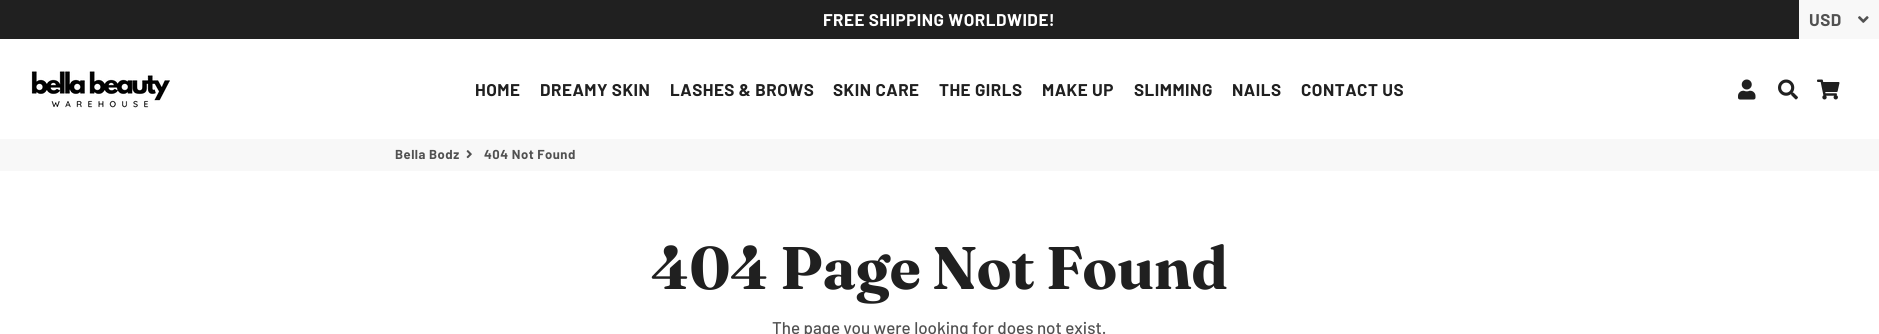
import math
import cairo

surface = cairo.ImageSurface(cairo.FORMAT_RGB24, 1879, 334)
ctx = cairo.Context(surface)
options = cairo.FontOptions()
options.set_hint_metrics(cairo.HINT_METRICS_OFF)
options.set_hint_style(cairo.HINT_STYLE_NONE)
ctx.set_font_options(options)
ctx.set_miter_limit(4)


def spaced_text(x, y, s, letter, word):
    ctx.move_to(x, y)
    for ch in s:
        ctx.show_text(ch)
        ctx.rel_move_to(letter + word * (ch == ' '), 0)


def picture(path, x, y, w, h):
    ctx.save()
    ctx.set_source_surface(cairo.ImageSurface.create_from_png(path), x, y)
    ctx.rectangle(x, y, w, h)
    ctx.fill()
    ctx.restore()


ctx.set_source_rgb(1, 1, 1)
ctx.paint()
ctx.set_source_rgb(0.125, 0.125, 0.125)
ctx.rectangle(0, 0, 1799, 39)
ctx.fill()
ctx.select_font_face("Barlow", cairo.FONT_SLANT_NORMAL, cairo.FONT_WEIGHT_BOLD)
ctx.set_font_size(17)
ctx.set_source_rgb(1, 1, 1)
spaced_text(823, 26, "FREE SHIPPING WORLDWIDE!", 0.5, 0)
ctx.set_source_rgb(0.969, 0.969, 0.969)
ctx.rectangle(1799, 0, 80, 39)
ctx.fill()
picture("img1.png", 1858, 16, 11, 7)
ctx.set_source_rgb(0.318, 0.318, 0.318)
spaced_text(1809, 26, "USD", 0.5, 0)
picture("img2.png", 31, 71, 139, 37)
ctx.set_source_rgb(0.125, 0.125, 0.125)
spaced_text(475, 96, "HOME", 0.5, 0)
spaced_text(540, 96, "DREAMY SKIN", 0.5, 0)
spaced_text(670, 96, "LASHES & BROWS", 0.5, 0)
spaced_text(833, 96, "SKIN CARE", 0.5, 0)
spaced_text(939, 96, "THE GIRLS", 0.5, 0)
spaced_text(1042, 96, "MAKE UP", 0.5, 0)
spaced_text(1134, 96, "SLIMMING", 0.5, 0)
spaced_text(1232, 96, "NAILS", 0.5, 0)
spaced_text(1301, 96, "CONTACT US", 0.5, 0)
picture("img3.png", 1738, 79, 18, 21)
picture("img4.png", 1778, 79, 20, 21)
picture("img5.png", 1817, 79, 23, 21)
ctx.set_source_rgb(0.969, 0.969, 0.969)
ctx.rectangle(0, 139, 1879, 32)
ctx.fill()
ctx.set_font_size(13)
ctx.set_source_rgb(0.318, 0.318, 0.318)
spaced_text(395, 159, "Bella Bodz", 0.5, 0)
picture("img6.png", 466, 150, 6, 9)
spaced_text(484, 159, "404 Not Found", 0.5, 0)
ctx.select_font_face("Fraunces", cairo.FONT_SLANT_NORMAL, cairo.FONT_WEIGHT_BOLD)
ctx.set_font_size(60)
ctx.set_source_rgb(0.125, 0.125, 0.125)
ctx.move_to(651, 289)
ctx.show_text("404 Page Not Found")
ctx.select_font_face("Barlow Medium")
ctx.set_font_size(17)
ctx.set_source_rgb(0.318, 0.318, 0.318)
ctx.move_to(772, 334)
ctx.show_text("The page you were looking for does not exist.")
surface.write_to_png("page.png")
